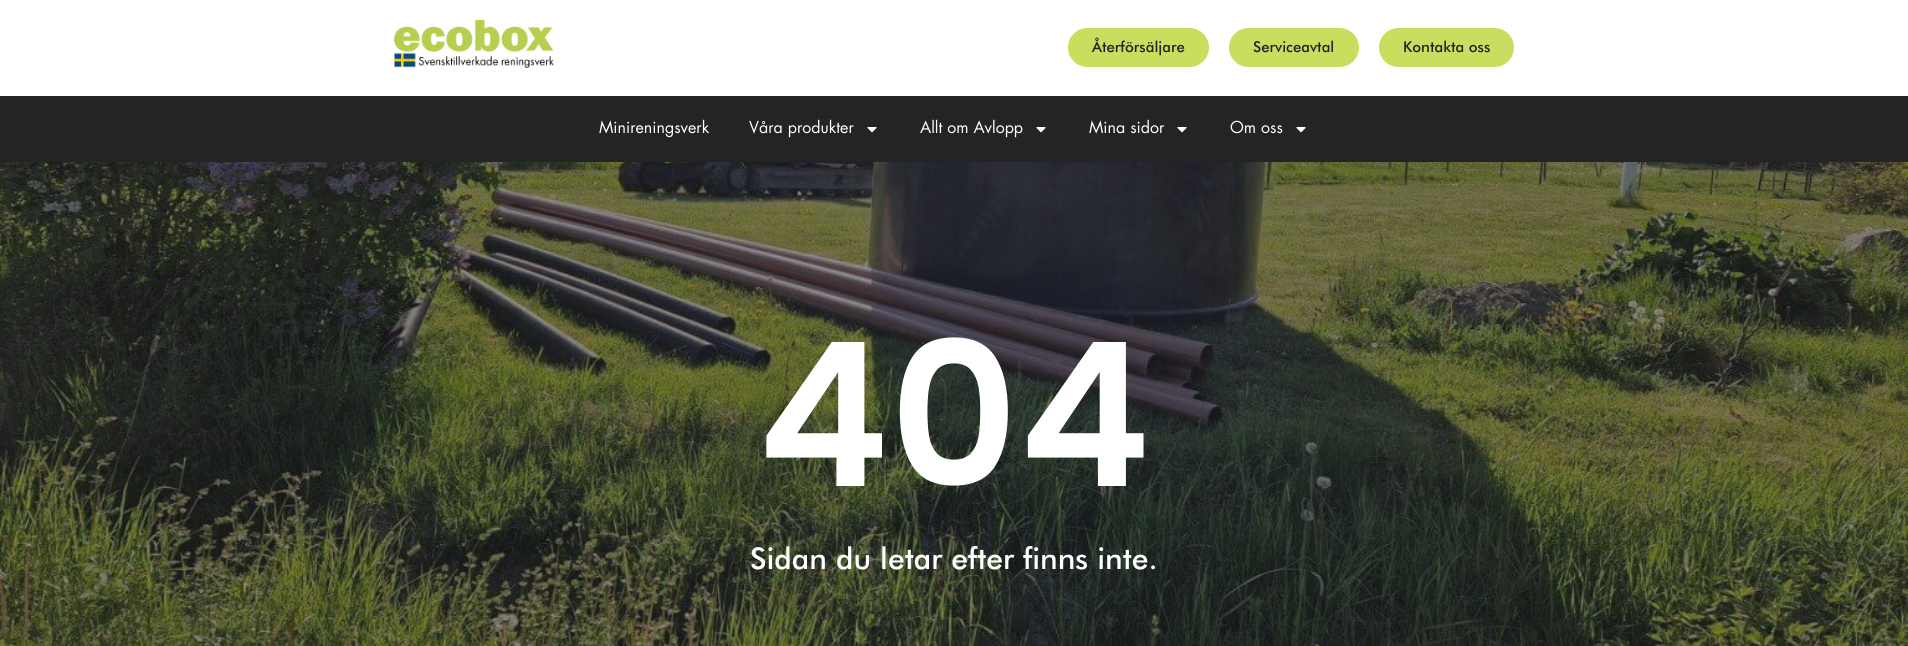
import math
import cairo

surface = cairo.ImageSurface(cairo.FORMAT_RGB24, 1908, 646)
ctx = cairo.Context(surface)
options = cairo.FontOptions()
options.set_hint_metrics(cairo.HINT_METRICS_OFF)
options.set_hint_style(cairo.HINT_STYLE_NONE)
ctx.set_font_options(options)
ctx.set_miter_limit(4)


def round_rect(x, y, w, h, r):
    ctx.new_sub_path()
    for i, (u, v) in enumerate([(x + w - r, y + h - r), (x + r, y + h - r), (x + r, y + r), (x + w - r, y + r)]):
        ctx.arc(u, v, r, i * math.pi / 2, (i + 1) * math.pi / 2)
    ctx.close_path()


def picture(path, x, y, w, h):
    ctx.save()
    ctx.set_source_surface(cairo.ImageSurface.create_from_png(path), x, y)
    ctx.rectangle(x, y, w, h)
    ctx.fill()
    ctx.restore()


ctx.set_source_rgb(1, 1, 1)
ctx.paint()
picture("img1.png", 394, 20, 160, 48)
ctx.set_source_rgb(0.796, 0.867, 0.373)
round_rect(1068, 28, 141, 39, 19.5)
ctx.fill()
ctx.select_font_face("Futura Medium")
ctx.set_font_size(15)
ctx.set_source_rgb(0.141, 0.141, 0.141)
ctx.move_to(1092, 52)
ctx.show_text("Återförsäljare")
ctx.set_source_rgb(0.796, 0.867, 0.373)
round_rect(1229, 28, 130, 39, 19.5)
ctx.fill()
ctx.set_source_rgb(0.141, 0.141, 0.141)
ctx.move_to(1253, 52)
ctx.show_text("Serviceavtal")
ctx.set_source_rgb(0.796, 0.867, 0.373)
round_rect(1379, 28, 135, 39, 19.5)
ctx.fill()
ctx.set_source_rgb(0.141, 0.141, 0.141)
ctx.move_to(1403, 52)
ctx.show_text("Kontakta oss")
ctx.rectangle(0, 96, 1908, 66)
ctx.fill()
ctx.select_font_face("Futura")
ctx.set_font_size(16)
ctx.set_source_rgb(1, 1, 1)
ctx.move_to(599, 133)
ctx.show_text("Minireningsverk")
ctx.move_to(749, 133)
ctx.show_text("Våra produkter")
picture("img2.png", 867, 127, 10, 6)
ctx.move_to(920, 133)
ctx.show_text("Allt om Avlopp")
picture("img2.png", 1036, 127, 10, 6)
ctx.move_to(1089, 133)
ctx.show_text("Mina sidor")
picture("img2.png", 1177, 127, 10, 6)
ctx.move_to(1230, 133)
ctx.show_text("Om oss")
picture("img2.png", 1296, 127, 10, 6)
picture("img3.png", 0, 162, 1908, 484)
ctx.select_font_face("Poppins SemiBold")
ctx.set_font_size(200)
ctx.move_to(757, 486)
ctx.show_text("404")
ctx.select_font_face("Futura Medium")
ctx.set_font_size(30)
ctx.move_to(750, 569)
ctx.show_text("Sidan du letar efter finns inte.")
surface.write_to_png("page.png")
